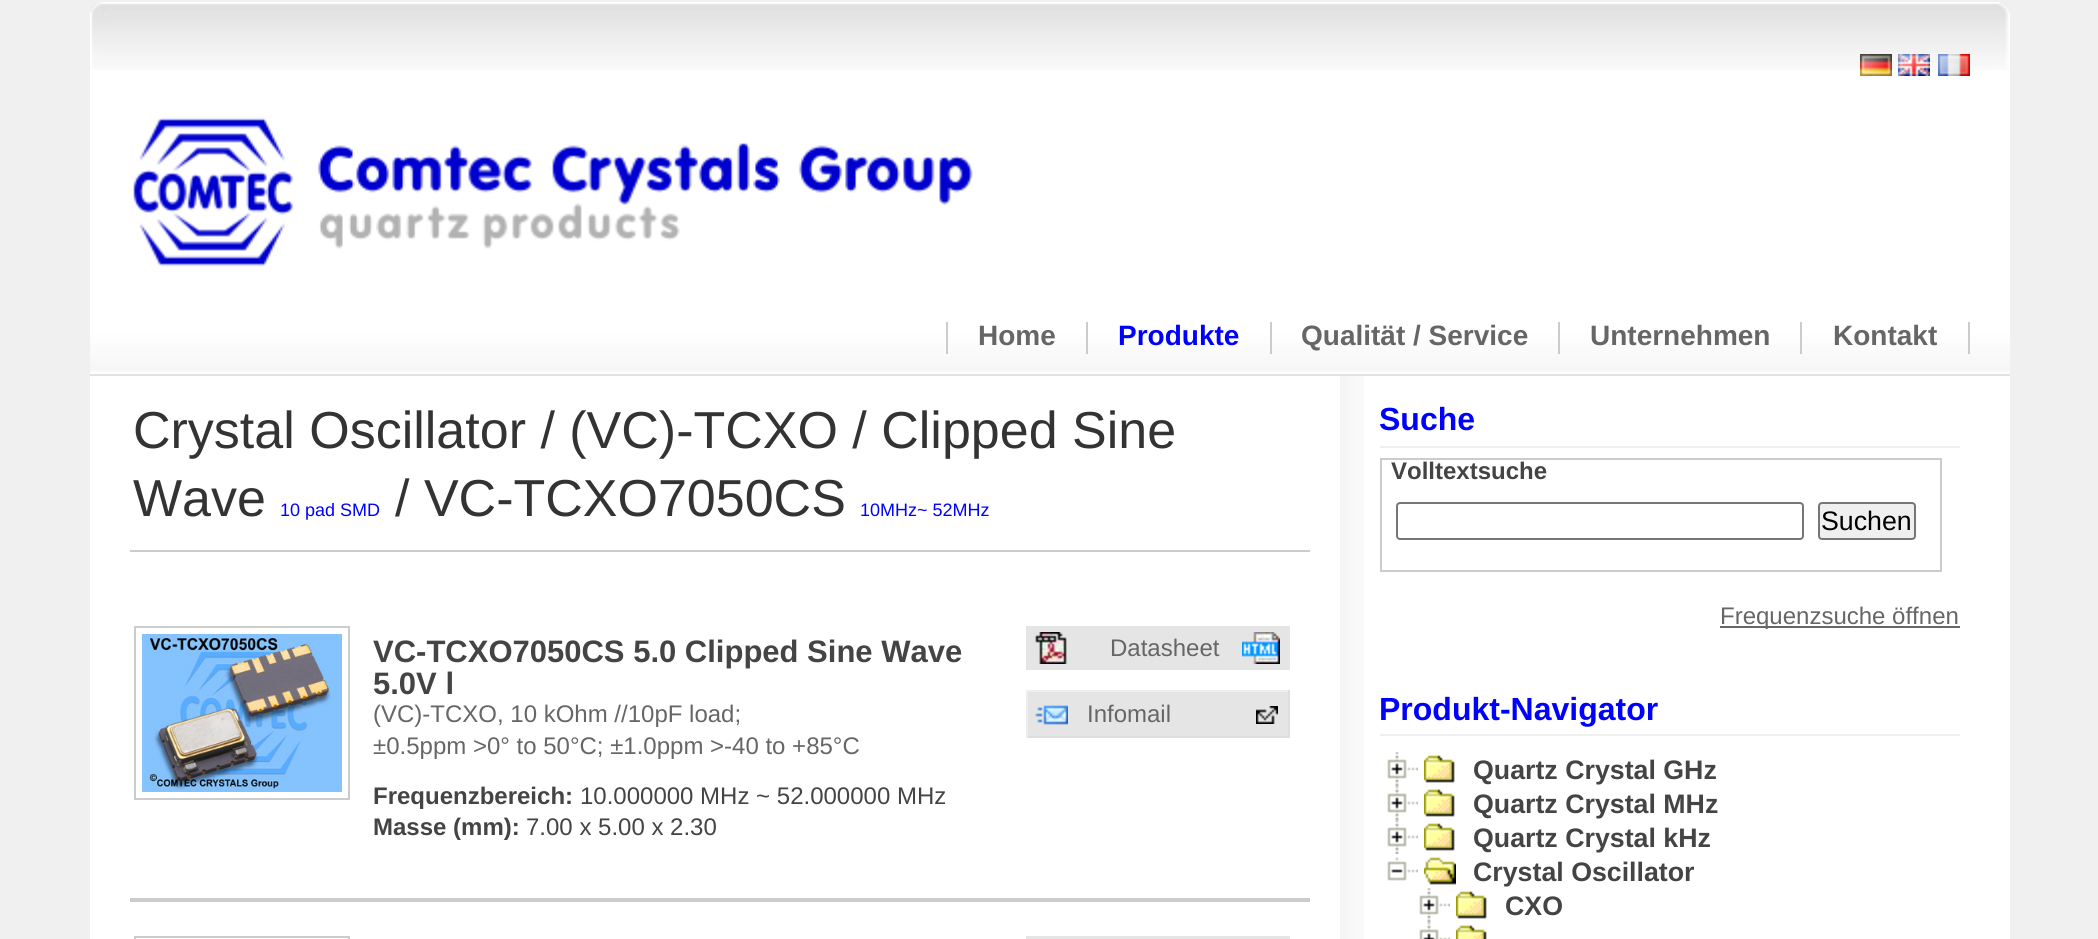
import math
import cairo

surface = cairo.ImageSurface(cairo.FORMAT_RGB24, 2098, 939)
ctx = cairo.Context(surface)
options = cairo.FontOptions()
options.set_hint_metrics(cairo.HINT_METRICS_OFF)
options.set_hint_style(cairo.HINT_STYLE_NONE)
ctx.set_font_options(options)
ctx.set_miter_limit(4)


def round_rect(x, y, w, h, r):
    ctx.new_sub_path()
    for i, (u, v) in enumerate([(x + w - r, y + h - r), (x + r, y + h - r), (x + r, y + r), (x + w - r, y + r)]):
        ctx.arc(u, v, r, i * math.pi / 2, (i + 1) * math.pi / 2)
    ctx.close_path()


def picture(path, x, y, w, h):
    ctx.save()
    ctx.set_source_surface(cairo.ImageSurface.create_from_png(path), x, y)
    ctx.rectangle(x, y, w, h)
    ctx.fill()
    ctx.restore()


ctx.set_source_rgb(0.941, 0.941, 0.941)
ctx.paint()
ctx.set_source_rgb(1, 1, 1)
ctx.rectangle(90, 70, 1920, 869)
ctx.fill()
picture("img1.png", 90, 2, 1920, 68)
picture("img2.png", 90, 318, 1920, 56)
ctx.set_source_rgb(0.886, 0.886, 0.886)
ctx.rectangle(90, 374, 1920, 2)
ctx.fill()
picture("img3.png", 1860, 54, 32, 22)
picture("img4.png", 1898, 54, 32, 22)
picture("img5.png", 1938, 54, 32, 22)
picture("img6.png", 133, 117, 840, 150)
ctx.set_source_rgb(0.8, 0.8, 0.8)
ctx.rectangle(946, 322, 2, 32)
ctx.fill()
ctx.rectangle(1086, 322, 2, 32)
ctx.fill()
ctx.select_font_face("Liberation Sans", cairo.FONT_SLANT_NORMAL, cairo.FONT_WEIGHT_BOLD)
ctx.set_font_size(28)
ctx.set_source_rgb(0.4, 0.4, 0.4)
ctx.move_to(978, 345)
ctx.show_text("Home")
ctx.set_source_rgb(0.8, 0.8, 0.8)
ctx.rectangle(1270, 322, 2, 32)
ctx.fill()
ctx.set_source_rgb(0, 0, 1)
ctx.move_to(1118, 345)
ctx.show_text("Produkte")
ctx.set_source_rgb(0.8, 0.8, 0.8)
ctx.rectangle(1558, 322, 2, 32)
ctx.fill()
ctx.set_source_rgb(0.4, 0.4, 0.4)
ctx.move_to(1301, 345)
ctx.show_text("Qualität / Service")
ctx.set_source_rgb(0.8, 0.8, 0.8)
ctx.rectangle(1800, 322, 2, 32)
ctx.fill()
ctx.set_source_rgb(0.4, 0.4, 0.4)
ctx.move_to(1590, 345)
ctx.show_text("Unternehmen")
ctx.set_source_rgb(0.8, 0.8, 0.8)
ctx.rectangle(1968, 322, 2, 32)
ctx.fill()
ctx.set_source_rgb(0.4, 0.4, 0.4)
ctx.move_to(1833, 345)
ctx.show_text("Kontakt")
picture("img7.png", 1340, 376, 24, 563)
ctx.set_source_rgb(0.8, 0.8, 0.8)
ctx.rectangle(130, 550, 1180, 2)
ctx.fill()
ctx.select_font_face("Liberation Sans")
ctx.set_font_size(52)
ctx.set_source_rgb(0.2, 0.2, 0.2)
ctx.move_to(133, 448)
ctx.show_text("Crystal Oscillator / (VC)-TCXO / Clipped Sine")
ctx.move_to(133, 516)
ctx.show_text("Wave")
ctx.set_font_size(18)
ctx.set_source_rgb(0, 0, 1)
ctx.move_to(280, 516)
ctx.show_text("10 pad SMD")
ctx.set_font_size(52)
ctx.set_source_rgb(0.2, 0.2, 0.2)
ctx.move_to(395, 516)
ctx.show_text("/ VC-TCXO7050CS")
ctx.set_font_size(18)
ctx.set_source_rgb(0, 0, 1)
ctx.move_to(860, 516)
ctx.show_text("10MHz~ 52MHz")
ctx.rectangle(135, 627, 214, 172)
ctx.set_source_rgb(0.8, 0.8, 0.8)
ctx.stroke()
picture("img8.png", 142, 634, 200, 158)
ctx.select_font_face("Liberation Sans", cairo.FONT_SLANT_NORMAL, cairo.FONT_WEIGHT_BOLD)
ctx.set_font_size(31)
ctx.set_source_rgb(0.267, 0.267, 0.267)
ctx.move_to(373, 662)
ctx.show_text("VC-TCXO7050CS 5.0 Clipped Sine Wave")
ctx.move_to(373, 694)
ctx.show_text("5.0V l")
ctx.select_font_face("Liberation Sans")
ctx.set_font_size(24)
ctx.set_source_rgb(0.4, 0.4, 0.4)
ctx.move_to(373, 722)
ctx.show_text("(VC)-TCXO, 10 kOhm //10pF load;")
ctx.move_to(373, 754)
ctx.show_text("±0.5ppm >0° to 50°C; ±1.0ppm >-40 to +85°C")
ctx.select_font_face("Liberation Sans", cairo.FONT_SLANT_NORMAL, cairo.FONT_WEIGHT_BOLD)
ctx.set_source_rgb(0.267, 0.267, 0.267)
ctx.move_to(373, 804)
ctx.show_text("Frequenzbereich:")
ctx.select_font_face("Liberation Sans")
ctx.move_to(580, 804)
ctx.show_text("10.000000 MHz ~ 52.000000 MHz")
ctx.select_font_face("Liberation Sans", cairo.FONT_SLANT_NORMAL, cairo.FONT_WEIGHT_BOLD)
ctx.move_to(373, 835)
ctx.show_text("Masse (mm):")
ctx.select_font_face("Liberation Sans")
ctx.move_to(526, 835)
ctx.show_text("7.00 x 5.00 x 2.30")
ctx.set_source_rgb(0.898, 0.898, 0.898)
ctx.rectangle(1026, 626, 264, 44)
ctx.fill()
picture("img9.png", 1035, 632, 32, 32)
picture("img10.png", 1242, 632, 38, 32)
ctx.set_source_rgb(0.4, 0.4, 0.4)
ctx.move_to(1110, 656)
ctx.show_text("Datasheet")
ctx.set_source_rgb(0.898, 0.898, 0.898)
ctx.rectangle(1028, 692, 260, 44)
ctx.fill()
picture("img11.png", 1035, 705, 33, 20)
ctx.set_source_rgb(0.933, 0.933, 0.933)
ctx.rectangle(1026, 690, 264, 2)
ctx.fill()
ctx.set_source_rgb(0.871, 0.871, 0.871)
ctx.rectangle(1288, 690, 2, 48)
ctx.fill()
ctx.rectangle(1026, 736, 264, 2)
ctx.fill()
ctx.set_source_rgb(0.933, 0.933, 0.933)
ctx.rectangle(1026, 690, 2, 48)
ctx.fill()
ctx.set_source_rgb(0.4, 0.4, 0.4)
ctx.move_to(1087, 722)
ctx.show_text("Infomail")
picture("img12.png", 1256, 706, 22, 18)
ctx.set_source_rgb(0.8, 0.8, 0.8)
ctx.rectangle(130, 898, 1180, 4)
ctx.fill()
ctx.rectangle(135, 937, 214, 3)
ctx.stroke()
ctx.set_source_rgb(0.898, 0.898, 0.898)
ctx.rectangle(1026, 936, 264, 3)
ctx.fill()
ctx.set_source_rgb(0.937, 0.937, 0.937)
ctx.rectangle(1380, 446, 580, 2)
ctx.fill()
ctx.select_font_face("Liberation Sans", cairo.FONT_SLANT_NORMAL, cairo.FONT_WEIGHT_BOLD)
ctx.set_font_size(32)
ctx.set_source_rgb(0, 0, 1)
ctx.move_to(1379, 430)
ctx.show_text("Suche")
ctx.rectangle(1381, 459, 560, 112)
ctx.set_source_rgb(0.8, 0.8, 0.8)
ctx.stroke()
ctx.set_font_size(24)
ctx.set_source_rgb(0.267, 0.267, 0.267)
ctx.move_to(1391, 479)
ctx.show_text("Volltextsuche")
round_rect(1397, 503, 406, 36, 3)
ctx.set_source_rgb(0.463, 0.463, 0.463)
ctx.stroke()
ctx.set_source_rgb(0.937, 0.937, 0.937)
round_rect(1819, 503, 96, 36, 3)
ctx.fill_preserve()
ctx.set_source_rgb(0.463, 0.463, 0.463)
ctx.stroke()
ctx.select_font_face("Liberation Sans")
ctx.set_font_size(26.75)
ctx.set_source_rgb(0, 0, 0)
ctx.move_to(1821, 530)
ctx.show_text("Suchen")
ctx.set_source_rgb(0.4, 0.4, 0.4)
ctx.rectangle(1720, 626, 240, 2)
ctx.fill()
ctx.set_font_size(24)
ctx.move_to(1720, 624)
ctx.show_text("Frequenzsuche öffnen")
ctx.set_source_rgb(0.937, 0.937, 0.937)
ctx.rectangle(1380, 734, 580, 2)
ctx.fill()
ctx.select_font_face("Liberation Sans", cairo.FONT_SLANT_NORMAL, cairo.FONT_WEIGHT_BOLD)
ctx.set_font_size(32)
ctx.set_source_rgb(0, 0, 1)
ctx.move_to(1379, 720)
ctx.show_text("Produkt-Navigator")
picture("img13.png", 1395, 752, 4, 34)
picture("img14.png", 1387, 755, 31, 31)
picture("img15.png", 1424, 755, 31, 28)
ctx.set_font_size(26.75)
ctx.set_source_rgb(0.267, 0.267, 0.267)
ctx.move_to(1473, 779)
ctx.show_text("Quartz Crystal GHz")
picture("img13.png", 1395, 786, 4, 34)
picture("img14.png", 1387, 789, 31, 31)
picture("img15.png", 1424, 789, 31, 28)
ctx.move_to(1473, 813)
ctx.show_text("Quartz Crystal MHz")
picture("img13.png", 1395, 820, 4, 34)
picture("img14.png", 1387, 823, 31, 31)
picture("img15.png", 1424, 823, 31, 28)
ctx.move_to(1473, 847)
ctx.show_text("Quartz Crystal kHz")
picture("img16.png", 1387, 857, 31, 24)
picture("img17.png", 1424, 857, 32, 28)
ctx.move_to(1473, 881)
ctx.show_text("Crystal Oscillator")
picture("img13.png", 1427, 888, 4, 34)
picture("img14.png", 1419, 891, 31, 31)
picture("img15.png", 1456, 891, 31, 28)
ctx.move_to(1505, 915)
ctx.show_text("CXO")
picture("img18.png", 1427, 922, 4, 9)
picture("img19.png", 1419, 925, 31, 14)
picture("img20.png", 1456, 925, 31, 14)
surface.write_to_png("page.png")
